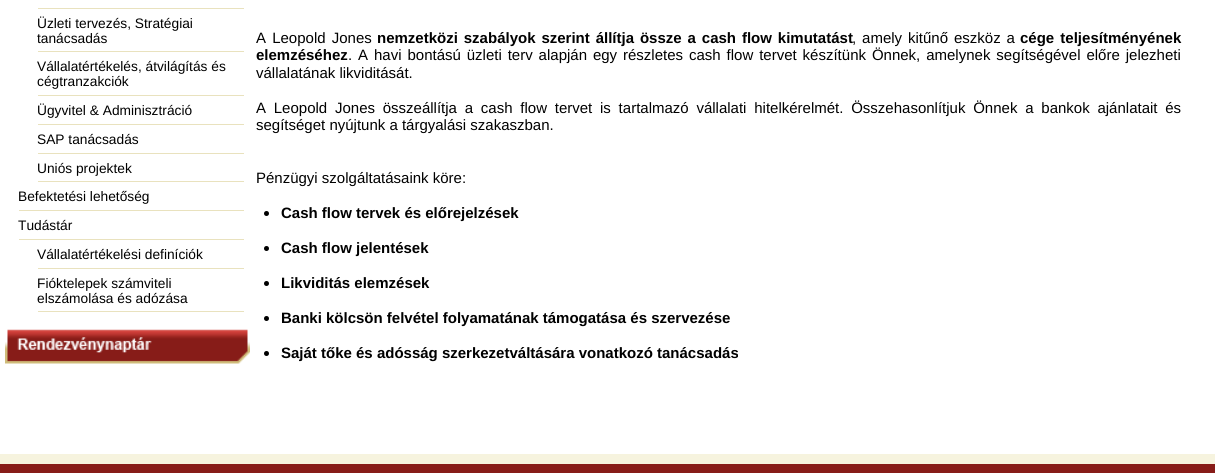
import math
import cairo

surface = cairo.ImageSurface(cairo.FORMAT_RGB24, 1215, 473)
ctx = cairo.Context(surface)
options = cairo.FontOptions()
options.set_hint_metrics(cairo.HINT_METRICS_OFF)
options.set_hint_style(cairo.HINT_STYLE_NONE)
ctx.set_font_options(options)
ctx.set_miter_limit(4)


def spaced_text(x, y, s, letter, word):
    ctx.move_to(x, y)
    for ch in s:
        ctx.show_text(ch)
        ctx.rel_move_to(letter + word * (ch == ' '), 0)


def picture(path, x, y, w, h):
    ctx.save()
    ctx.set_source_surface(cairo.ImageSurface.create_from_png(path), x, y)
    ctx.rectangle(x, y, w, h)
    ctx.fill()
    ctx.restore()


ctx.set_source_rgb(1, 1, 1)
ctx.paint()
ctx.set_source_rgb(0.914, 0.886, 0.745)
ctx.rectangle(38, 8, 206, 1)
ctx.fill()
ctx.rectangle(38, 51, 206, 1)
ctx.fill()
ctx.select_font_face("Liberation Sans")
ctx.set_font_size(13.75)
ctx.set_source_rgb(0, 0, 0)
ctx.move_to(37, 28)
ctx.show_text("Üzleti tervezés, Stratégiai")
ctx.move_to(37, 43)
ctx.show_text("tanácsadás")
ctx.set_source_rgb(0.914, 0.886, 0.745)
ctx.rectangle(38, 95, 206, 1)
ctx.fill()
ctx.set_source_rgb(0, 0, 0)
ctx.move_to(37, 71)
ctx.show_text("Vállalatértékelés, átvilágítás és")
ctx.move_to(37, 86)
ctx.show_text("cégtranzakciók")
ctx.set_source_rgb(0.914, 0.886, 0.745)
ctx.rectangle(38, 124, 206, 1)
ctx.fill()
ctx.set_source_rgb(0, 0, 0)
ctx.move_to(37, 115)
ctx.show_text("Ügyvitel & Adminisztráció")
ctx.set_source_rgb(0.914, 0.886, 0.745)
ctx.rectangle(38, 153, 206, 1)
ctx.fill()
ctx.set_source_rgb(0, 0, 0)
ctx.move_to(37, 144)
ctx.show_text("SAP tanácsadás")
ctx.set_source_rgb(0.914, 0.886, 0.745)
ctx.rectangle(38, 181, 206, 1)
ctx.fill()
ctx.set_source_rgb(0, 0, 0)
ctx.move_to(37, 173)
ctx.show_text("Uniós projektek")
ctx.set_source_rgb(0.914, 0.886, 0.745)
ctx.rectangle(19, 210, 225, 1)
ctx.fill()
ctx.set_source_rgb(0, 0, 0)
ctx.move_to(18, 201)
ctx.show_text("Befektetési lehetőség")
ctx.set_source_rgb(0.914, 0.886, 0.745)
ctx.rectangle(19, 239, 225, 1)
ctx.fill()
ctx.set_source_rgb(0, 0, 0)
ctx.move_to(18, 230)
ctx.show_text("Tudástár")
ctx.set_source_rgb(0.914, 0.886, 0.745)
ctx.rectangle(38, 268, 206, 1)
ctx.fill()
ctx.set_source_rgb(0, 0, 0)
ctx.move_to(37, 259)
ctx.show_text("Vállalatértékelési definíciók")
ctx.set_source_rgb(0.914, 0.886, 0.745)
ctx.rectangle(38, 311, 206, 1)
ctx.fill()
ctx.set_source_rgb(0, 0, 0)
ctx.move_to(37, 288)
ctx.show_text("Fióktelepek számviteli")
ctx.move_to(37, 303)
ctx.show_text("elszámolása és adózása")
picture("img1.png", 5, 329, 245, 35)
ctx.set_font_size(15)
spaced_text(256, 43, "A Leopold Jones", 0, 2)
ctx.select_font_face("Liberation Sans", cairo.FONT_SLANT_NORMAL, cairo.FONT_WEIGHT_BOLD)
spaced_text(377, 43, "nemzetközi szabályok szerint állítja össze a cash flow kimutatást", 0, 1.75)
ctx.select_font_face("Liberation Sans")
spaced_text(852, 43, ", amely kitűnő eszköz a", 0, 1.75)
ctx.select_font_face("Liberation Sans", cairo.FONT_SLANT_NORMAL, cairo.FONT_WEIGHT_BOLD)
spaced_text(1020, 43, "cége teljesítményének", 0, 2)
ctx.move_to(256, 60)
ctx.show_text("elemzéséhez")
ctx.select_font_face("Liberation Sans")
spaced_text(348, 60, ". A havi bontású üzleti terv alapján egy részletes cash flow tervet készítünk Önnek, amelynek segítségével előre jelezheti", 0, 1.75)
ctx.move_to(256, 78)
ctx.show_text("vállalatának likviditását.")
spaced_text(256, 113, "A Leopold Jones összeállítja a cash flow tervet is tartalmazó vállalati hitelkérelmét. Összehasonlítjuk Önnek a bankok ajánlatait és", 0, 3.6)
ctx.move_to(256, 130)
ctx.show_text("segítséget nyújtunk a tárgyalási szakaszban.")
ctx.move_to(256, 183)
ctx.show_text("Pénzügyi szolgáltatásaink köre:")
ctx.new_path()
ctx.arc(266.5, 213.5, 2.5, 0, 2 * math.pi)
ctx.fill()
ctx.select_font_face("Liberation Sans", cairo.FONT_SLANT_NORMAL, cairo.FONT_WEIGHT_BOLD)
ctx.move_to(281, 218)
ctx.show_text("Cash flow tervek és előrejelzések")
ctx.new_path()
ctx.arc(266.5, 248.5, 2.5, 0, 2 * math.pi)
ctx.fill()
ctx.move_to(281, 253)
ctx.show_text("Cash flow jelentések")
ctx.new_path()
ctx.arc(266.5, 283.5, 2.5, 0, 2 * math.pi)
ctx.fill()
ctx.move_to(281, 288)
ctx.show_text("Likviditás elemzések")
ctx.new_path()
ctx.arc(266.5, 318.5, 2.5, 0, 2 * math.pi)
ctx.fill()
ctx.move_to(281, 323)
ctx.show_text("Banki kölcsön felvétel folyamatának támogatása és szervezése")
ctx.new_path()
ctx.arc(266.5, 353.5, 2.5, 0, 2 * math.pi)
ctx.fill()
ctx.move_to(281, 358)
ctx.show_text("Saját tőke és adósság szerkezetváltására vonatkozó tanácsadás")
ctx.set_source_rgb(0.529, 0.11, 0.094)
ctx.rectangle(0, 464, 1215, 9)
ctx.fill()
ctx.set_source_rgb(0.961, 0.953, 0.871)
ctx.rectangle(0, 454, 1215, 10)
ctx.fill()
surface.write_to_png("page.png")
